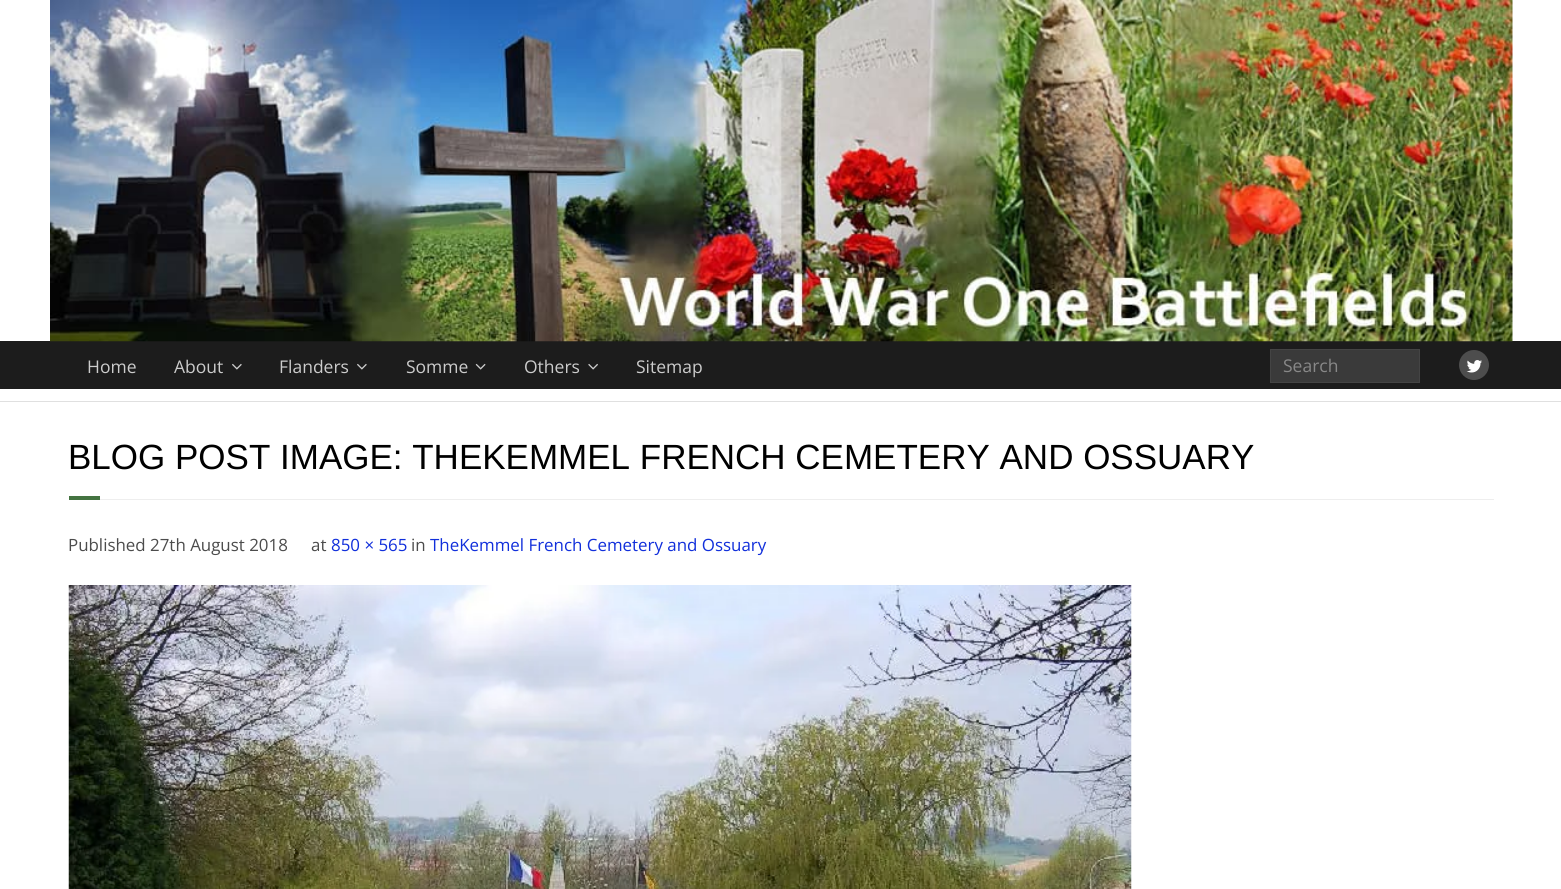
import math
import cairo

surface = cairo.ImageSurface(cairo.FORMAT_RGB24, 1561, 889)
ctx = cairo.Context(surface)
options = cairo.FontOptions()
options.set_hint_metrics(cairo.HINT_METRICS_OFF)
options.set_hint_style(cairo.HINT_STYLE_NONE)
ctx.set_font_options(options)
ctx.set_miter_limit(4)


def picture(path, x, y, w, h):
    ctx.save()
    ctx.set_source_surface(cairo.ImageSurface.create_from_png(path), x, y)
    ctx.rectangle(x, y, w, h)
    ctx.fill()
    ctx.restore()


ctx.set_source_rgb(1, 1, 1)
ctx.paint()
ctx.set_source_rgb(0.11, 0.11, 0.11)
ctx.rectangle(0, 341, 1561, 48)
ctx.fill()
picture("img1.png", 50, 0, 1463, 342)
ctx.select_font_face("Open Sans")
ctx.set_font_size(17.5)
ctx.set_source_rgb(0.8, 0.8, 0.8)
ctx.move_to(87, 373)
ctx.show_text("Home")
ctx.move_to(174, 373)
ctx.show_text("About")
picture("img2.png", 232, 363, 10, 7)
ctx.move_to(279, 373)
ctx.show_text("Flanders")
picture("img2.png", 357, 363, 10, 7)
ctx.move_to(406, 373)
ctx.show_text("Somme")
picture("img3.png", 475, 363, 11, 7)
ctx.move_to(524, 373)
ctx.show_text("Others")
picture("img4.png", 588, 363, 10, 7)
ctx.move_to(636, 373)
ctx.show_text("Sitemap")
ctx.set_source_rgb(0.227, 0.227, 0.227)
ctx.rectangle(1270.5, 349.5, 149, 33)
ctx.fill_preserve()
ctx.set_source_rgb(0.267, 0.267, 0.267)
ctx.set_line_width(1)
ctx.stroke()
ctx.set_source_rgb(0.533, 0.533, 0.533)
ctx.move_to(1283, 372)
ctx.show_text("Search")
ctx.set_source_rgb(0.302, 0.302, 0.302)
ctx.new_path()
ctx.arc(1474, 365, 15, 0, 2 * math.pi)
ctx.fill()
picture("img5.png", 1466, 360, 16, 13)
ctx.set_source_rgb(0.878, 0.878, 0.878)
ctx.rectangle(0, 401, 1561, 1)
ctx.fill()
ctx.select_font_face("Liberation Sans")
ctx.set_font_size(35)
ctx.set_source_rgb(0, 0, 0)
ctx.move_to(68, 469)
ctx.show_text("BLOG POST IMAGE: THEKEMMEL FRENCH CEMETERY AND OSSUARY")
ctx.set_source_rgb(0.267, 0.451, 0.255)
ctx.rectangle(69, 496, 31, 4)
ctx.fill()
ctx.set_source_rgb(0.933, 0.933, 0.933)
ctx.rectangle(100, 499, 1394, 1)
ctx.fill()
ctx.select_font_face("Open Sans")
ctx.set_font_size(16.9)
ctx.set_source_rgb(0.298, 0.298, 0.298)
ctx.move_to(68, 551)
ctx.show_text("Published 27th August 2018")
ctx.move_to(311, 551)
ctx.show_text("at")
ctx.set_source_rgb(0.067, 0.184, 0.859)
ctx.move_to(331, 551)
ctx.show_text("850 × 565")
ctx.set_source_rgb(0.298, 0.298, 0.298)
ctx.move_to(411, 551)
ctx.show_text("in")
ctx.set_source_rgb(0.067, 0.184, 0.859)
ctx.move_to(430, 551)
ctx.show_text("TheKemmel French Cemetery and Ossuary")
picture("img6.png", 68, 585, 1064, 304)
surface.write_to_png("page.png")
